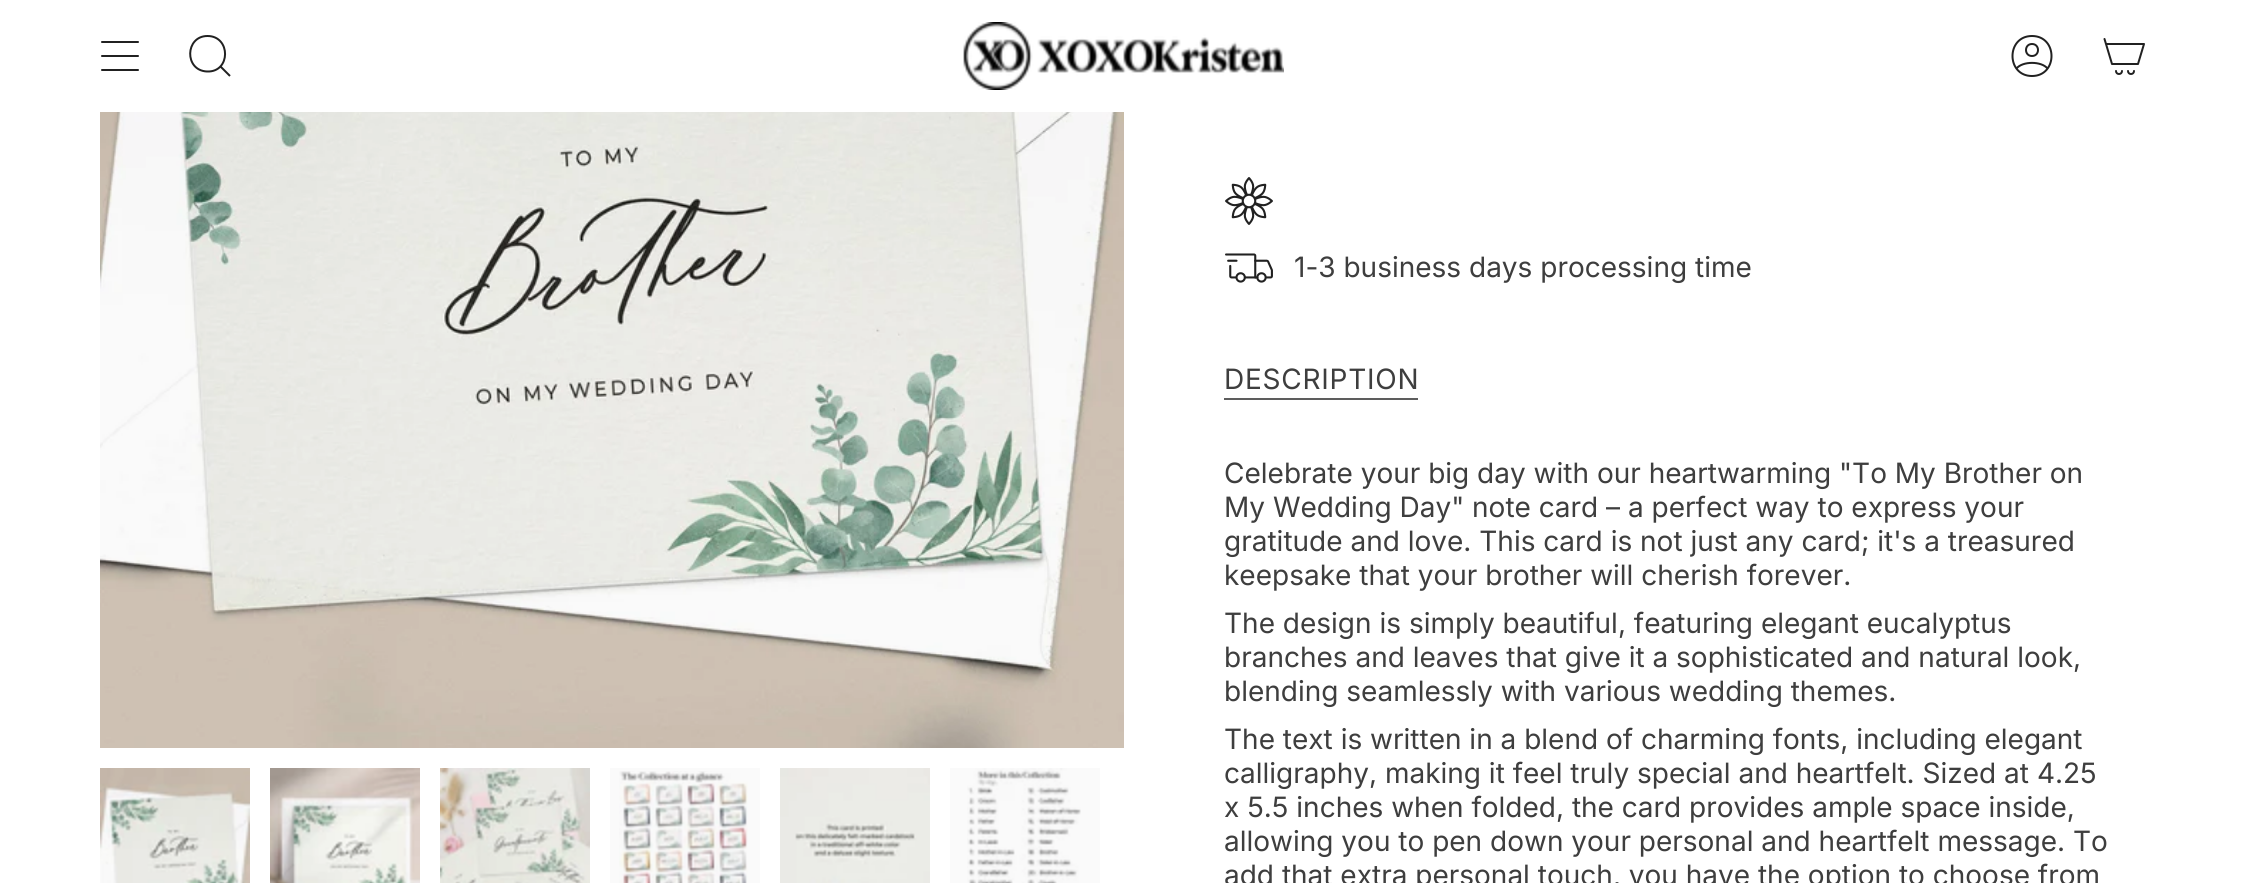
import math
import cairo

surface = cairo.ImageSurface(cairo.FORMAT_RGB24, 2247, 883)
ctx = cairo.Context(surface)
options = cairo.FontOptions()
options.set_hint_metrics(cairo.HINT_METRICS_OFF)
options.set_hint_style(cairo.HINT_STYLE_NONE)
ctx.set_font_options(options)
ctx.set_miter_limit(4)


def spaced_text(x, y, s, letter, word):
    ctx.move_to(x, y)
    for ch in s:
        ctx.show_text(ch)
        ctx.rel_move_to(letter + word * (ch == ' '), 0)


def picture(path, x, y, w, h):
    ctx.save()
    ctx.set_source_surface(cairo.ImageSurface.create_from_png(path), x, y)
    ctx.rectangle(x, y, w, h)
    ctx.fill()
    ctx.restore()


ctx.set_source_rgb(1, 1, 1)
ctx.paint()
ctx.set_source_rgb(0.98, 0.98, 0.98)
ctx.rectangle(950, 768, 150, 115)
ctx.fill()
ctx.rectangle(610, 768, 150, 115)
ctx.fill()
ctx.new_path()
ctx.move_to(102, 42)
ctx.line_to(138, 42)
ctx.move_to(102, 56)
ctx.line_to(138, 56)
ctx.move_to(102, 70)
ctx.line_to(138, 70)
ctx.set_source_rgb(0.129, 0.129, 0.129)
ctx.set_line_cap(cairo.LINE_CAP_ROUND)
ctx.set_line_join(cairo.LINE_JOIN_ROUND)
ctx.stroke()
ctx.new_path()
ctx.move_to(207.5, 36)
ctx.curve_to(231, 36, 231, 72.5, 207, 71.5)
ctx.curve_to(184, 70.5, 185, 36, 207.5, 36)
ctx.close_path()
ctx.move_to(220, 66)
ctx.line_to(230, 76)
ctx.set_line_cap(cairo.LINE_CAP_BUTT)
ctx.set_line_join(cairo.LINE_JOIN_MITER)
ctx.stroke()
picture("img1.png", 963, 22, 321, 68)
ctx.new_path()
ctx.move_to(2032, 36)
ctx.curve_to(2006, 36, 2006, 76, 2032, 76)
ctx.curve_to(2058, 76, 2058, 36, 2032, 36)
ctx.close_path()
ctx.move_to(2016.5, 68.5)
ctx.curve_to(2022.5, 61, 2041.5, 61, 2047.5, 68.5)
ctx.move_to(2032, 56)
ctx.curve_to(2040, 56, 2040, 44, 2032, 44)
ctx.curve_to(2024, 44, 2024, 56, 2032, 56)
ctx.close_path()
ctx.set_line_cap(cairo.LINE_CAP_ROUND)
ctx.set_line_join(cairo.LINE_JOIN_ROUND)
ctx.stroke()
ctx.new_path()
ctx.move_to(2106, 44)
ctx.line_to(2144, 44)
ctx.line_to(2138, 64)
ctx.line_to(2112, 64)
ctx.close_path()
ctx.move_to(2106, 44)
ctx.line_to(2104.5, 39)
ctx.move_to(2122, 71)
ctx.curve_to(2122, 75, 2116, 75, 2116, 71)
ctx.move_to(2134, 71)
ctx.curve_to(2134, 75, 2128, 75, 2128, 71)
ctx.stroke()
picture("img2.png", 100, 112, 1024, 636)
picture("img3.png", 100, 768, 150, 115)
picture("img4.png", 270, 768, 150, 115)
picture("img5.png", 440, 768, 150, 115)
picture("img6.png", 619, 771, 129, 112)
picture("img7.png", 780, 768, 150, 115)
picture("img8.png", 967, 768, 114, 115)
picture("img9.png", 1225, 177, 48, 48)
picture("img10.png", 1225, 253, 48, 30)
ctx.select_font_face("Inter")
ctx.set_font_size(28)
ctx.set_source_rgb(0.243, 0.243, 0.243)
ctx.move_to(1294, 277)
ctx.show_text("1-3 business days processing time")
spaced_text(1224, 389, "DESCRIPTION", 0.75, 0)
ctx.set_source_rgb(0.365, 0.365, 0.365)
ctx.rectangle(1224, 398, 194, 2)
ctx.fill()
ctx.set_source_rgb(0.243, 0.243, 0.243)
ctx.move_to(1224, 483)
ctx.show_text("Celebrate your big day with our heartwarming \"To My Brother on")
ctx.move_to(1224, 517)
ctx.show_text("My Wedding Day\" note card – a perfect way to express your")
ctx.move_to(1224, 551)
ctx.show_text("gratitude and love. This card is not just any card; it's a treasured")
ctx.move_to(1224, 585)
ctx.show_text("keepsake that your brother will cherish forever.")
ctx.move_to(1224, 633)
ctx.show_text("The design is simply beautiful, featuring elegant eucalyptus")
ctx.move_to(1224, 667)
ctx.show_text("branches and leaves that give it a sophisticated and natural look,")
ctx.move_to(1224, 701)
ctx.show_text("blending seamlessly with various wedding themes.")
ctx.move_to(1224, 749)
ctx.show_text("The text is written in a blend of charming fonts, including elegant")
ctx.move_to(1224, 783)
ctx.show_text("calligraphy, making it feel truly special and heartfelt. Sized at 4.25")
ctx.move_to(1224, 817)
ctx.show_text("x 5.5 inches when folded, the card provides ample space inside,")
ctx.move_to(1224, 851)
ctx.show_text("allowing you to pen down your personal and heartfelt message. To")
ctx.move_to(1224, 885)
ctx.show_text("add that extra personal touch, you have the option to choose from")
surface.write_to_png("page.png")
